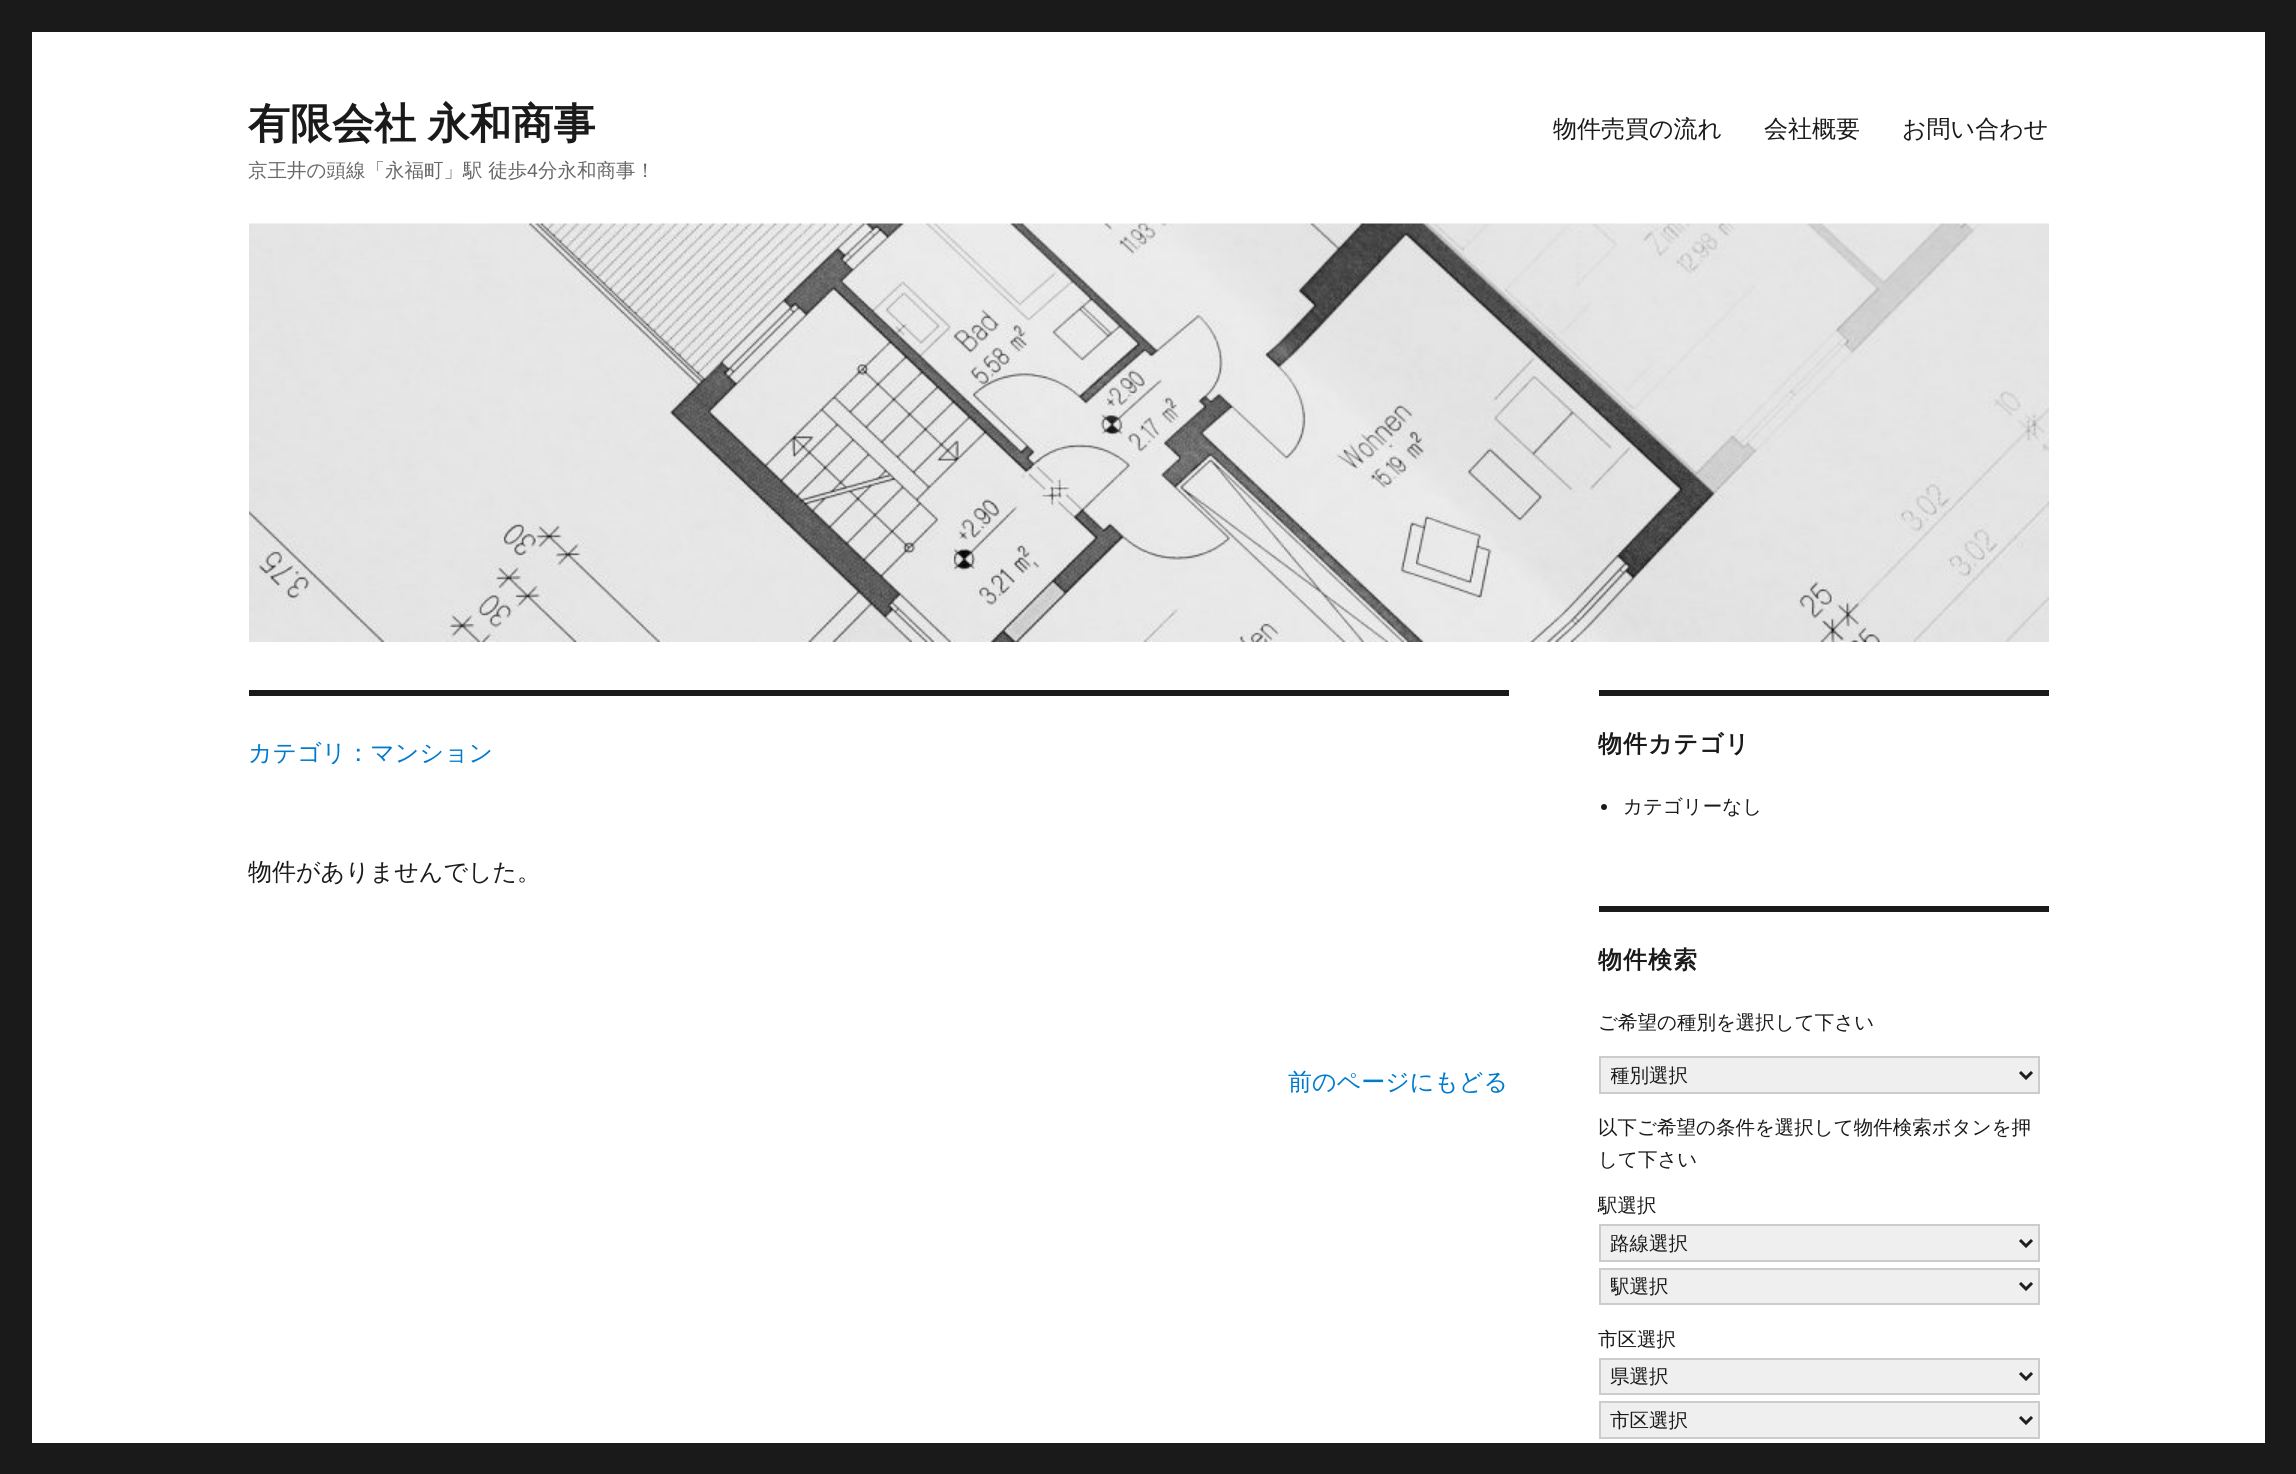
import math
import cairo

surface = cairo.ImageSurface(cairo.FORMAT_RGB24, 2296, 1474)
ctx = cairo.Context(surface)
options = cairo.FontOptions()
options.set_hint_metrics(cairo.HINT_METRICS_OFF)
options.set_hint_style(cairo.HINT_STYLE_NONE)
ctx.set_font_options(options)
ctx.set_miter_limit(4)


def spaced_text(x, y, s, letter, word):
    ctx.move_to(x, y)
    for ch in s:
        ctx.show_text(ch)
        ctx.rel_move_to(letter + word * (ch == ' '), 0)


def picture(path, x, y, w, h):
    ctx.save()
    ctx.set_source_surface(cairo.ImageSurface.create_from_png(path), x, y)
    ctx.rectangle(x, y, w, h)
    ctx.fill()
    ctx.restore()


ctx.set_source_rgb(0.102, 0.102, 0.102)
ctx.paint()
ctx.set_source_rgb(1, 1, 1)
ctx.rectangle(32, 32, 2233, 1411)
ctx.fill()
ctx.select_font_face("WenQuanYi Zen Hei", cairo.FONT_SLANT_NORMAL, cairo.FONT_WEIGHT_BOLD)
ctx.set_font_size(42)
ctx.set_source_rgb(0.102, 0.102, 0.102)
spaced_text(248, 138, "有限会社 永和商事", 0, -1)
ctx.select_font_face("WenQuanYi Zen Hei Medium")
ctx.set_font_size(19.5)
ctx.set_source_rgb(0.408, 0.408, 0.408)
ctx.move_to(248, 177)
ctx.show_text("京王井の頭線「永福町」駅 徒歩")
ctx.select_font_face("Liberation Sans")
ctx.move_to(527, 177)
ctx.show_text("4")
ctx.select_font_face("WenQuanYi Zen Hei Medium")
ctx.move_to(538, 177)
ctx.show_text("分永和商事！")
ctx.set_font_size(24)
ctx.set_source_rgb(0.102, 0.102, 0.102)
ctx.move_to(1553, 137)
ctx.show_text("物件売買の流れ")
ctx.move_to(1764, 137)
ctx.show_text("会社概要")
ctx.move_to(1902, 137)
ctx.show_text("お問い合わせ")
picture("img1.png", 249, 223, 1800, 419)
ctx.rectangle(249, 690, 1260, 6)
ctx.fill()
ctx.set_source_rgb(0, 0.478, 0.8)
ctx.move_to(248, 761)
ctx.show_text("カテゴリ：マンション")
ctx.set_source_rgb(0.102, 0.102, 0.102)
ctx.move_to(248, 880)
ctx.show_text("物件がありませんでした。")
ctx.set_source_rgb(0, 0.478, 0.8)
ctx.move_to(1288, 1090)
ctx.show_text("前のページにもどる")
ctx.set_source_rgb(0.102, 0.102, 0.102)
ctx.rectangle(1599, 690, 450, 6)
ctx.fill()
ctx.select_font_face("WenQuanYi Zen Hei", cairo.FONT_SLANT_NORMAL, cairo.FONT_WEIGHT_BOLD)
spaced_text(1598, 752, "物件カテゴリ", 1, 0)
ctx.new_path()
ctx.arc(1604, 807, 3, 0, 2 * math.pi)
ctx.fill()
ctx.select_font_face("WenQuanYi Zen Hei Medium")
ctx.set_font_size(19.5)
ctx.move_to(1623, 813)
ctx.show_text("カテゴリーなし")
ctx.rectangle(1599, 906, 450, 6)
ctx.fill()
ctx.select_font_face("WenQuanYi Zen Hei", cairo.FONT_SLANT_NORMAL, cairo.FONT_WEIGHT_BOLD)
ctx.set_font_size(24)
spaced_text(1598, 968, "物件検索", 1, 0)
ctx.select_font_face("WenQuanYi Zen Hei Medium")
ctx.set_font_size(19.5)
ctx.move_to(1598, 1029)
ctx.show_text("ご希望の種別を選択して下さい")
ctx.set_source_rgb(0.937, 0.937, 0.937)
ctx.rectangle(1600, 1057, 439, 36)
ctx.fill_preserve()
ctx.set_source_rgb(0.8, 0.8, 0.8)
ctx.stroke()
ctx.new_path()
ctx.move_to(2020, 1072)
ctx.line_to(2026, 1078)
ctx.line_to(2032, 1072)
ctx.set_source_rgb(0.122, 0.122, 0.122)
ctx.set_line_width(3)
ctx.stroke()
ctx.save()
ctx.rectangle(1611, 1062, 399, 26)
ctx.clip()
ctx.set_source_rgb(0.102, 0.102, 0.102)
ctx.move_to(1610, 1082)
ctx.show_text("種別選択")
ctx.restore()
ctx.set_source_rgb(0.102, 0.102, 0.102)
ctx.move_to(1598, 1134)
ctx.show_text("以下ご希望の条件を選択して物件検索ボタンを押")
ctx.move_to(1598, 1166)
ctx.show_text("して下さい")
ctx.move_to(1598, 1212)
ctx.show_text("駅選択")
ctx.set_source_rgb(0.937, 0.937, 0.937)
ctx.rectangle(1600, 1225, 439, 36)
ctx.fill_preserve()
ctx.set_source_rgb(0.8, 0.8, 0.8)
ctx.set_line_width(2)
ctx.stroke()
ctx.new_path()
ctx.move_to(2020, 1240)
ctx.line_to(2026, 1246)
ctx.line_to(2032, 1240)
ctx.set_source_rgb(0.122, 0.122, 0.122)
ctx.set_line_width(3)
ctx.stroke()
ctx.set_source_rgb(0.102, 0.102, 0.102)
ctx.move_to(1610, 1250)
ctx.show_text("路線選択")
ctx.set_source_rgb(0.937, 0.937, 0.937)
ctx.rectangle(1600, 1269, 439, 35)
ctx.fill_preserve()
ctx.set_source_rgb(0.8, 0.8, 0.8)
ctx.set_line_width(2)
ctx.stroke()
ctx.new_path()
ctx.move_to(2020, 1283)
ctx.line_to(2026, 1289)
ctx.line_to(2032, 1283)
ctx.set_source_rgb(0.122, 0.122, 0.122)
ctx.set_line_width(3)
ctx.stroke()
ctx.save()
ctx.rectangle(1611, 1274, 399, 25)
ctx.clip()
ctx.set_source_rgb(0.102, 0.102, 0.102)
ctx.move_to(1610, 1293)
ctx.show_text("駅選択")
ctx.restore()
ctx.set_source_rgb(0.102, 0.102, 0.102)
ctx.move_to(1598, 1346)
ctx.show_text("市区選択")
ctx.set_source_rgb(0.937, 0.937, 0.937)
ctx.rectangle(1600, 1359, 439, 35)
ctx.fill_preserve()
ctx.set_source_rgb(0.8, 0.8, 0.8)
ctx.set_line_width(2)
ctx.stroke()
ctx.new_path()
ctx.move_to(2020, 1373)
ctx.line_to(2026, 1379)
ctx.line_to(2032, 1373)
ctx.set_source_rgb(0.122, 0.122, 0.122)
ctx.set_line_width(3)
ctx.stroke()
ctx.set_source_rgb(0.102, 0.102, 0.102)
ctx.move_to(1610, 1383)
ctx.show_text("県選択")
ctx.set_source_rgb(0.937, 0.937, 0.937)
ctx.rectangle(1600, 1402, 439, 36)
ctx.fill_preserve()
ctx.set_source_rgb(0.8, 0.8, 0.8)
ctx.set_line_width(2)
ctx.stroke()
ctx.new_path()
ctx.move_to(2020, 1417)
ctx.line_to(2026, 1423)
ctx.line_to(2032, 1417)
ctx.set_source_rgb(0.122, 0.122, 0.122)
ctx.set_line_width(3)
ctx.stroke()
ctx.set_source_rgb(0.102, 0.102, 0.102)
ctx.move_to(1610, 1427)
ctx.show_text("市区選択")
surface.write_to_png("page.png")
